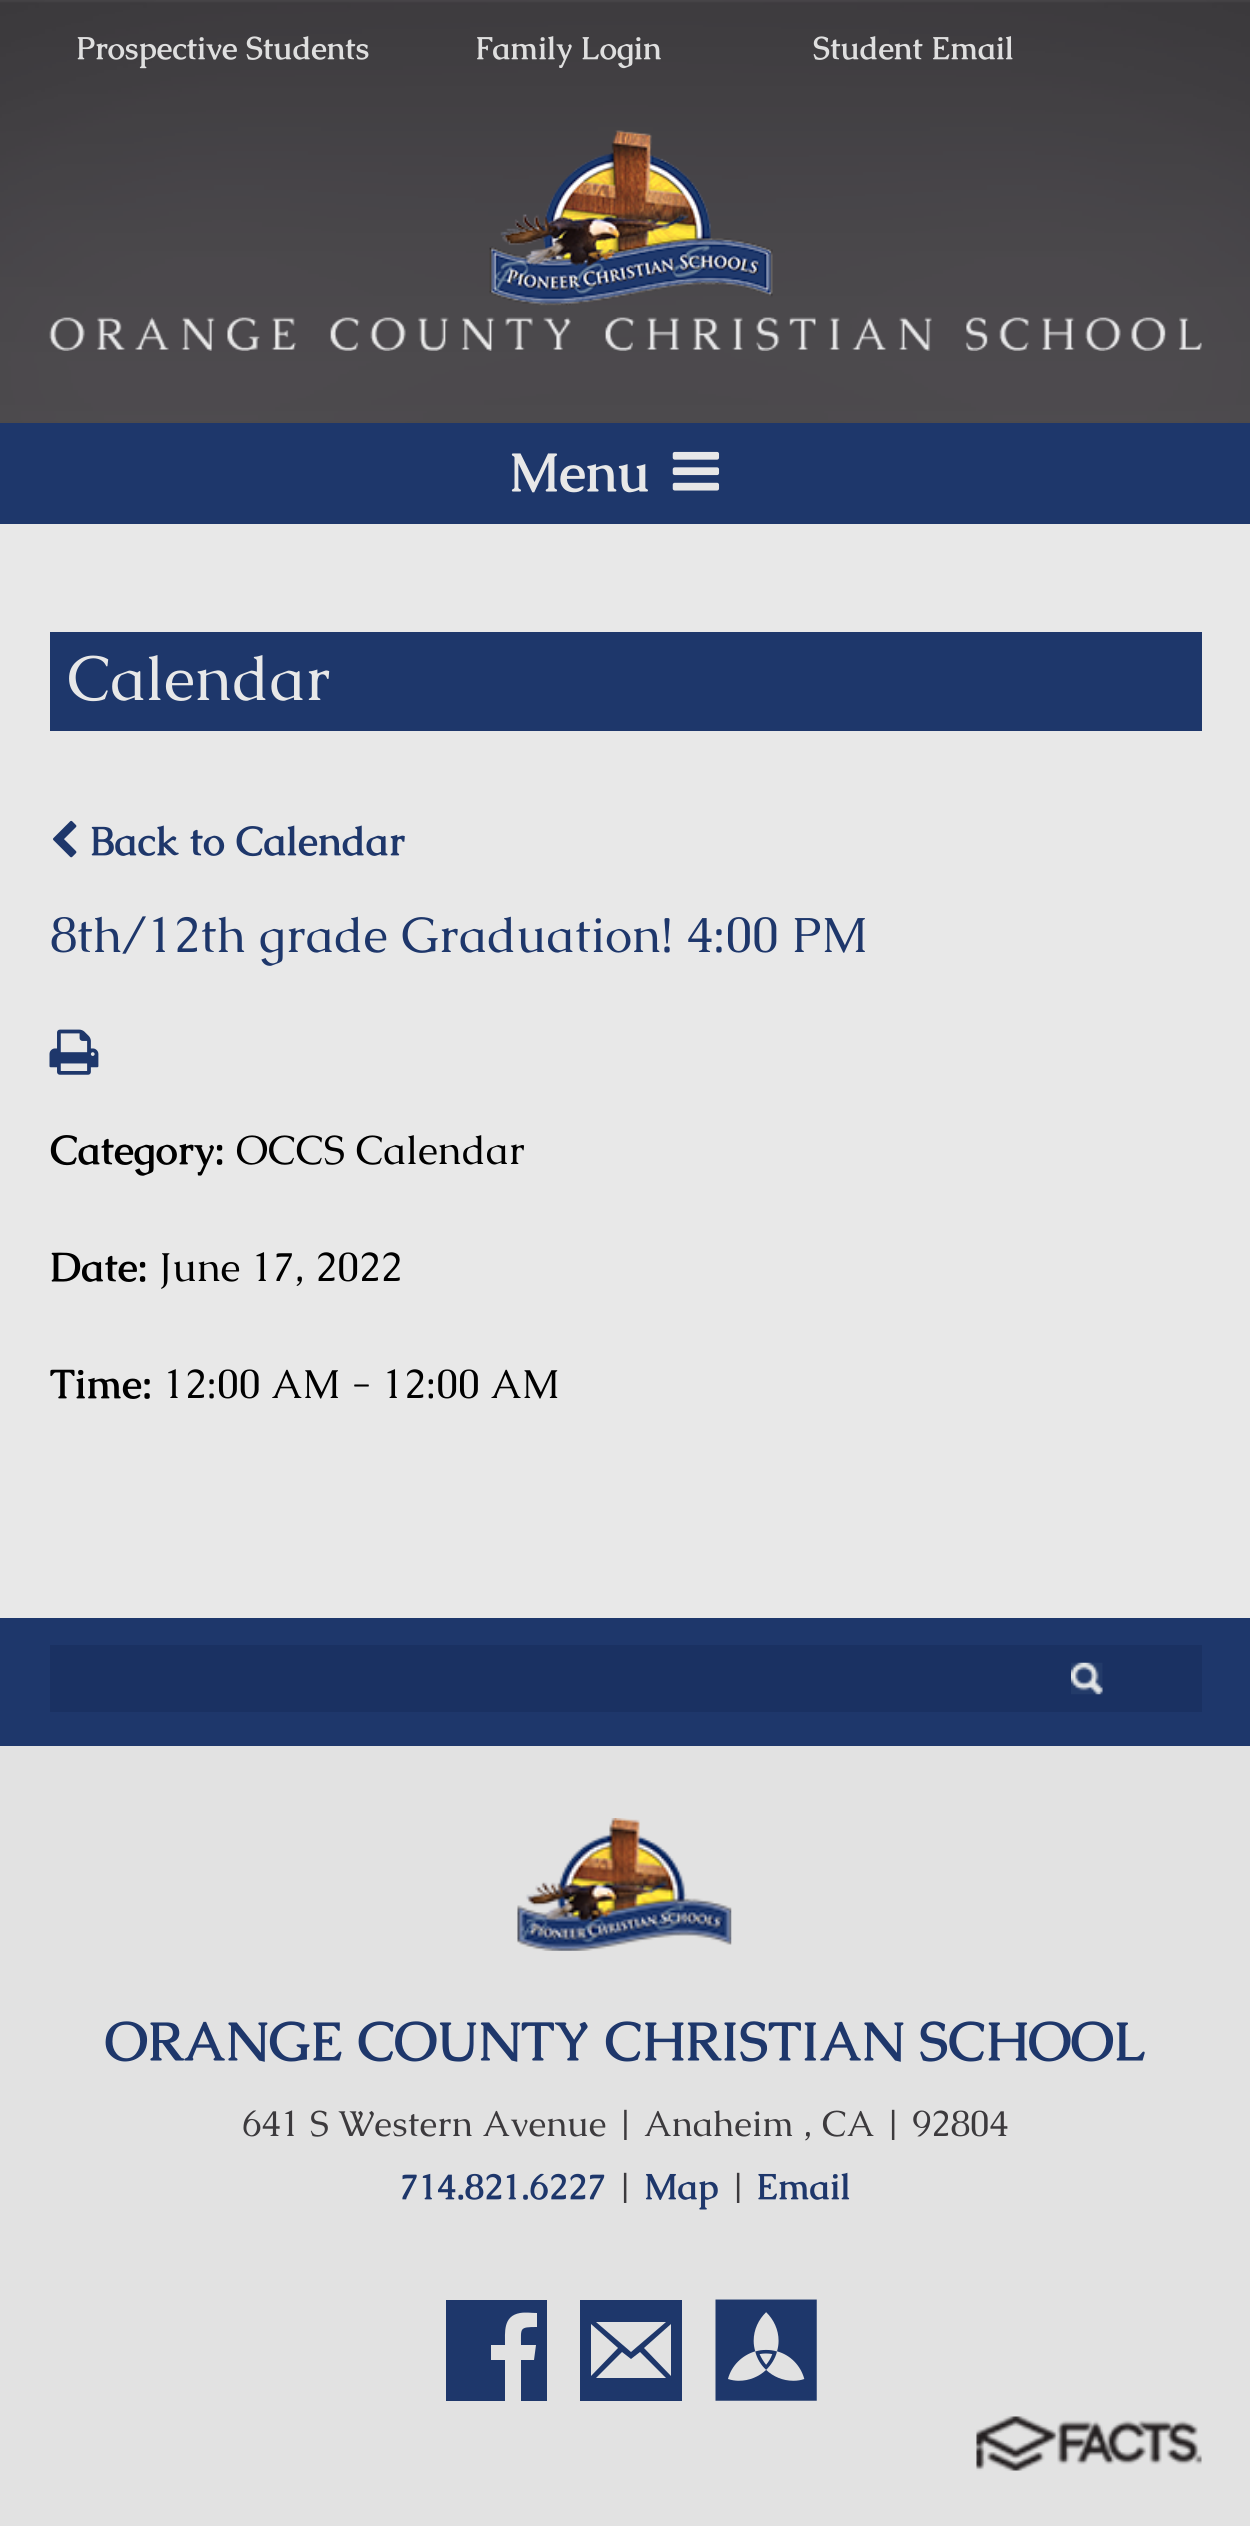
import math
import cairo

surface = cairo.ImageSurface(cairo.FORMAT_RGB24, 1250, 2526)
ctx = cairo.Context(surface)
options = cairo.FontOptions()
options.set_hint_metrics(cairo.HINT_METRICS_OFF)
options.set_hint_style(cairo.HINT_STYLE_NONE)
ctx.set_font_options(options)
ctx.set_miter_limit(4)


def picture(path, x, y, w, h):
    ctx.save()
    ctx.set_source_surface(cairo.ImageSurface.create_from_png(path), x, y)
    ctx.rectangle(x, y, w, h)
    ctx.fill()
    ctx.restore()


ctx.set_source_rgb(0.886, 0.886, 0.886)
ctx.paint()
picture("img1.png", 0, 0, 1250, 423)
ctx.select_font_face("Caudex", cairo.FONT_SLANT_NORMAL, cairo.FONT_WEIGHT_BOLD)
ctx.set_font_size(31.5)
ctx.set_source_rgb(0.875, 0.875, 0.875)
ctx.move_to(76, 59)
ctx.show_text("Prospective Students")
ctx.move_to(475, 59)
ctx.show_text("Family Login")
ctx.move_to(813, 59)
ctx.show_text("Student Email")
picture("img2.png", 49, 130, 1153, 221)
ctx.set_source_rgb(0.118, 0.216, 0.42)
ctx.rectangle(0, 423, 1250, 101)
ctx.fill()
ctx.set_font_size(54)
ctx.set_source_rgb(0.91, 0.91, 0.91)
ctx.move_to(509, 491)
ctx.show_text("Menu")
picture("img3.png", 672, 451, 48, 40)
ctx.rectangle(0, 524, 1250, 1094)
ctx.fill()
ctx.set_source_rgb(0.118, 0.216, 0.42)
ctx.rectangle(50, 632, 1152, 99)
ctx.fill()
ctx.select_font_face("Caudex")
ctx.set_font_size(63)
ctx.set_source_rgb(0.91, 0.91, 0.91)
ctx.move_to(67, 700)
ctx.show_text("Calendar")
picture("img4.png", 53, 820, 24, 38)
ctx.select_font_face("Caudex", cairo.FONT_SLANT_NORMAL, cairo.FONT_WEIGHT_BOLD)
ctx.set_font_size(40.5)
ctx.set_source_rgb(0.118, 0.216, 0.42)
ctx.move_to(90, 855)
ctx.show_text("Back to Calendar")
ctx.select_font_face("Caudex")
ctx.set_font_size(49.5)
ctx.move_to(50, 952)
ctx.show_text("8th/12th grade Graduation! 4:00 PM")
picture("img5.png", 49, 1029, 50, 46)
ctx.select_font_face("Caudex", cairo.FONT_SLANT_NORMAL, cairo.FONT_WEIGHT_BOLD)
ctx.set_font_size(40.5)
ctx.set_source_rgb(0, 0, 0)
ctx.move_to(50, 1164)
ctx.show_text("Category:")
ctx.select_font_face("Caudex")
ctx.move_to(236, 1164)
ctx.show_text("OCCS Calendar")
ctx.select_font_face("Caudex", cairo.FONT_SLANT_NORMAL, cairo.FONT_WEIGHT_BOLD)
ctx.move_to(50, 1281)
ctx.show_text("Date:")
ctx.select_font_face("Caudex")
ctx.move_to(159, 1281)
ctx.show_text("June 17, 2022")
ctx.select_font_face("Caudex", cairo.FONT_SLANT_NORMAL, cairo.FONT_WEIGHT_BOLD)
ctx.move_to(50, 1398)
ctx.show_text("Time:")
ctx.select_font_face("Caudex")
ctx.move_to(163, 1398)
ctx.show_text("12:00 AM - 12:00 AM")
ctx.set_source_rgb(0.118, 0.216, 0.42)
ctx.rectangle(0, 1618, 1250, 128)
ctx.fill()
ctx.set_source_rgb(0.102, 0.192, 0.384)
ctx.rectangle(50, 1645, 1152, 67)
ctx.fill()
picture("img6.png", 1071, 1662, 32, 33)
picture("img7.png", 517, 1818, 215, 133)
ctx.select_font_face("Caudex", cairo.FONT_SLANT_NORMAL, cairo.FONT_WEIGHT_BOLD)
ctx.set_font_size(54)
ctx.set_source_rgb(0.118, 0.216, 0.42)
ctx.move_to(105, 2060)
ctx.show_text("ORANGE COUNTY CHRISTIAN SCHOOL")
ctx.select_font_face("Caudex")
ctx.set_font_size(36)
ctx.set_source_rgb(0.235, 0.227, 0.239)
ctx.move_to(242, 2136)
ctx.show_text("641 S Western Avenue | Anaheim , CA | 92804")
ctx.select_font_face("Caudex", cairo.FONT_SLANT_NORMAL, cairo.FONT_WEIGHT_BOLD)
ctx.set_source_rgb(0.118, 0.216, 0.42)
ctx.move_to(400, 2199)
ctx.show_text("714.821.6227")
ctx.select_font_face("Caudex")
ctx.set_source_rgb(0.235, 0.227, 0.239)
ctx.move_to(616, 2199)
ctx.show_text("|")
ctx.select_font_face("Caudex", cairo.FONT_SLANT_NORMAL, cairo.FONT_WEIGHT_BOLD)
ctx.set_source_rgb(0.118, 0.216, 0.42)
ctx.move_to(644, 2199)
ctx.show_text("Map")
ctx.select_font_face("Caudex")
ctx.set_source_rgb(0.235, 0.227, 0.239)
ctx.move_to(729, 2199)
ctx.show_text("|")
ctx.select_font_face("Caudex", cairo.FONT_SLANT_NORMAL, cairo.FONT_WEIGHT_BOLD)
ctx.set_source_rgb(0.118, 0.216, 0.42)
ctx.move_to(756, 2199)
ctx.show_text("Email")
ctx.new_path()
ctx.move_to(547, 2300)
ctx.line_to(547, 2401)
ctx.line_to(521, 2401)
ctx.line_to(521, 2360)
ctx.line_to(534, 2360)
ctx.line_to(536, 2345)
ctx.line_to(521, 2345)
ctx.curve_to(521, 2328, 519, 2327, 537, 2327)
ctx.line_to(537, 2313)
ctx.curve_to(531, 2313, 526, 2312, 520, 2313)
ctx.curve_to(503, 2316, 505, 2332, 505, 2345)
ctx.line_to(491, 2345)
ctx.line_to(491, 2360)
ctx.line_to(505, 2360)
ctx.line_to(505, 2401)
ctx.line_to(446, 2401)
ctx.line_to(446, 2300)
ctx.close_path()
ctx.fill()
ctx.new_path()
ctx.move_to(580, 2300)
ctx.line_to(682, 2300)
ctx.line_to(682, 2401)
ctx.line_to(580, 2401)
ctx.close_path()
ctx.move_to(666, 2322)
ctx.line_to(596, 2322)
ctx.line_to(631, 2352)
ctx.close_path()
ctx.move_to(591, 2324)
ctx.line_to(591, 2376)
ctx.line_to(618, 2348)
ctx.close_path()
ctx.move_to(631, 2378)
ctx.line_to(666, 2378)
ctx.line_to(640, 2352)
ctx.line_to(631, 2359)
ctx.line_to(622, 2352)
ctx.line_to(596, 2378)
ctx.close_path()
ctx.move_to(671, 2376)
ctx.line_to(671, 2324)
ctx.line_to(644, 2348)
ctx.close_path()
ctx.fill()
picture("img8.png", 715, 2299, 102, 102)
picture("img9.png", 976, 2416, 226, 55)
surface.write_to_png("page.png")
